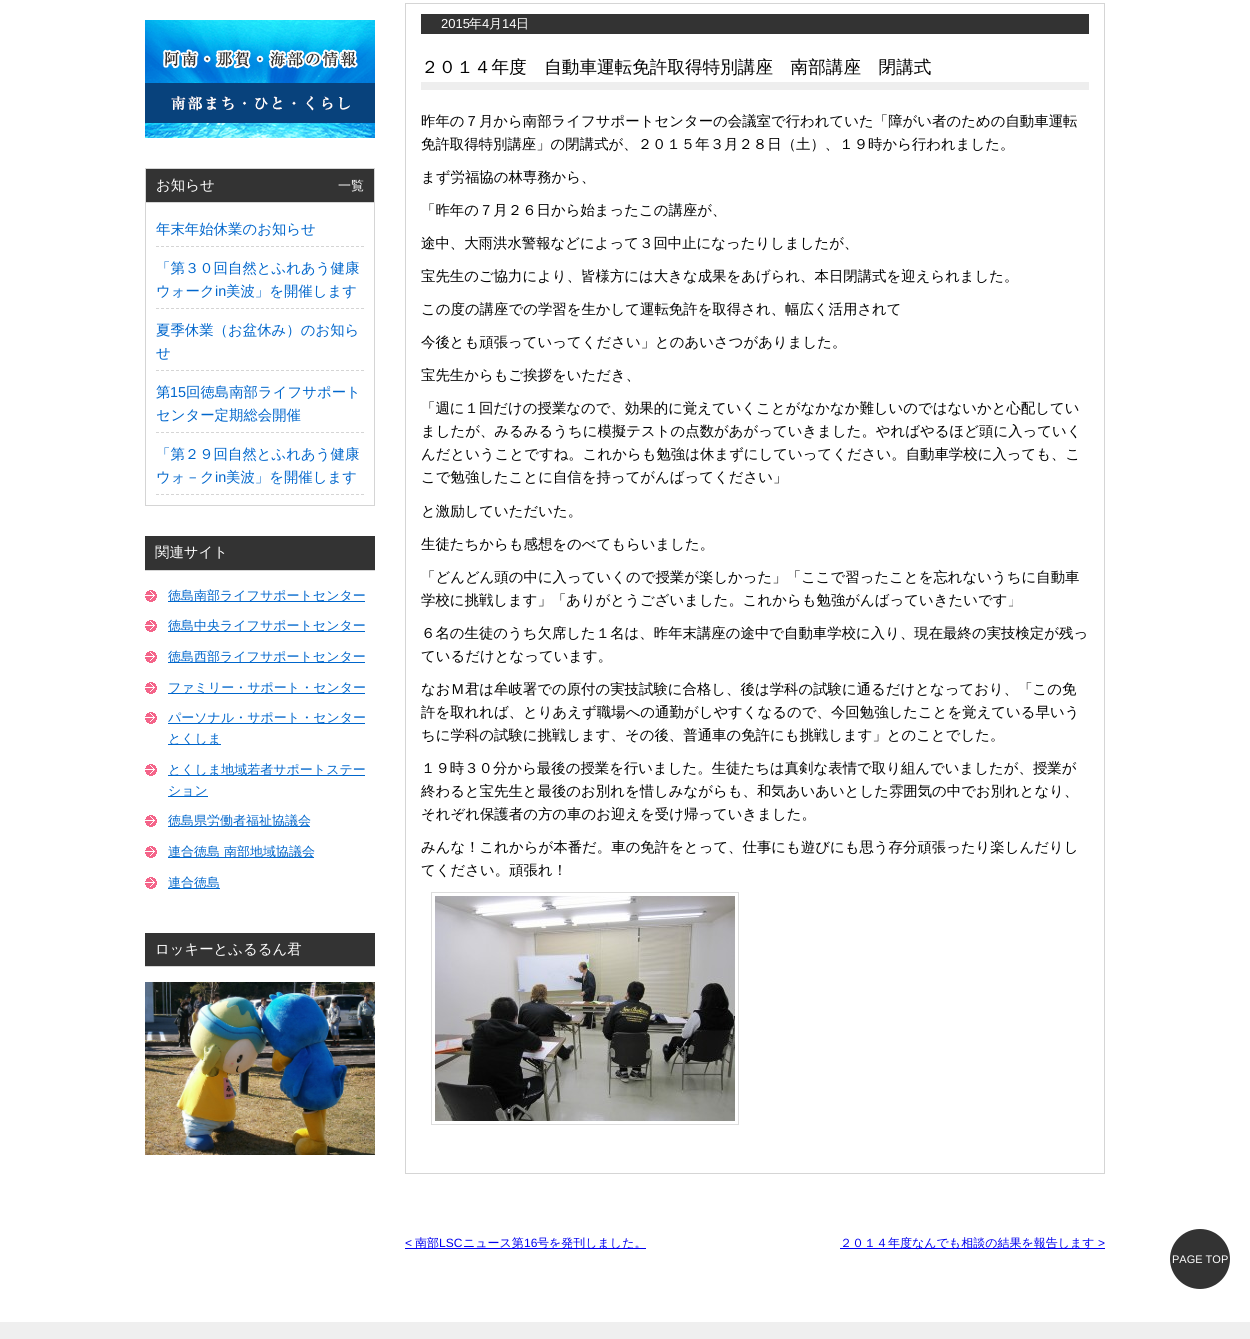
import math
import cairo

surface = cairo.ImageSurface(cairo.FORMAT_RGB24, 1250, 1339)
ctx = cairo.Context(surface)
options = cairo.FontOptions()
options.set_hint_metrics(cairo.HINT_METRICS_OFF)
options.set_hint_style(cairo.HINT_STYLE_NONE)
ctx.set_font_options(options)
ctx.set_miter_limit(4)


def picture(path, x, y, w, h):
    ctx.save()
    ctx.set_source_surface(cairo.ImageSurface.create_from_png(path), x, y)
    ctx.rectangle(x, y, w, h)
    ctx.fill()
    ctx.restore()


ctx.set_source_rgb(1, 1, 1)
ctx.paint()
picture("img1.png", 145, 20, 230, 118)
ctx.rectangle(145.5, 168.5, 229, 337)
ctx.set_source_rgb(0.835, 0.835, 0.835)
ctx.set_line_width(1)
ctx.stroke()
ctx.set_source_rgb(0.2, 0.2, 0.2)
ctx.rectangle(146, 169, 228, 33)
ctx.fill()
ctx.set_source_rgb(0.835, 0.835, 0.835)
ctx.rectangle(146, 202, 228, 1)
ctx.fill()
ctx.select_font_face("WenQuanYi Zen Hei Medium")
ctx.set_font_size(14.4)
ctx.set_source_rgb(1, 1, 1)
ctx.move_to(156, 190)
ctx.show_text("お知らせ")
ctx.set_font_size(13)
ctx.move_to(338, 190)
ctx.show_text("一覧")
ctx.new_path()
ctx.move_to(156, 246.5)
ctx.line_to(364, 246.5)
ctx.set_source_rgb(0.835, 0.835, 0.835)
ctx.set_dash([3, 2])
ctx.stroke()
ctx.set_font_size(14.4)
ctx.set_source_rgb(0, 0.4, 0.8)
ctx.move_to(156, 234)
ctx.show_text("年末年始休業のお知らせ")
ctx.new_path()
ctx.move_to(156, 308.5)
ctx.line_to(364, 308.5)
ctx.set_source_rgb(0.835, 0.835, 0.835)
ctx.stroke()
ctx.set_source_rgb(0, 0.4, 0.8)
ctx.move_to(156, 273)
ctx.show_text("「第３０回自然とふれあう健康")
ctx.move_to(156, 296)
ctx.show_text("ウォーク")
ctx.select_font_face("Liberation Sans")
ctx.move_to(215, 296)
ctx.show_text("in")
ctx.select_font_face("WenQuanYi Zen Hei Medium")
ctx.move_to(226, 296)
ctx.show_text("美波」を開催します")
ctx.new_path()
ctx.move_to(156, 370.5)
ctx.line_to(364, 370.5)
ctx.set_source_rgb(0.835, 0.835, 0.835)
ctx.stroke()
ctx.set_source_rgb(0, 0.4, 0.8)
ctx.move_to(156, 335)
ctx.show_text("夏季休業（お盆休み）のお知ら")
ctx.move_to(156, 358)
ctx.show_text("せ")
ctx.new_path()
ctx.move_to(156, 432.5)
ctx.line_to(364, 432.5)
ctx.set_source_rgb(0.835, 0.835, 0.835)
ctx.stroke()
ctx.set_source_rgb(0, 0.4, 0.8)
ctx.move_to(156, 397)
ctx.show_text("第")
ctx.select_font_face("Liberation Sans")
ctx.move_to(170, 397)
ctx.show_text("15")
ctx.select_font_face("WenQuanYi Zen Hei Medium")
ctx.move_to(186, 397)
ctx.show_text("回徳島南部ライフサポート")
ctx.move_to(156, 420)
ctx.show_text("センター定期総会開催")
ctx.new_path()
ctx.move_to(156, 494.5)
ctx.line_to(364, 494.5)
ctx.set_source_rgb(0.835, 0.835, 0.835)
ctx.stroke()
ctx.set_source_rgb(0, 0.4, 0.8)
ctx.move_to(156, 459)
ctx.show_text("「第２９回自然とふれあう健康")
ctx.move_to(156, 482)
ctx.show_text("ウォ－ク")
ctx.select_font_face("Liberation Sans")
ctx.move_to(215, 482)
ctx.show_text("in")
ctx.select_font_face("WenQuanYi Zen Hei Medium")
ctx.move_to(226, 482)
ctx.show_text("美波」を開催します")
ctx.set_source_rgb(0.2, 0.2, 0.2)
ctx.rectangle(145, 536, 230, 34)
ctx.fill()
ctx.set_source_rgb(0.835, 0.835, 0.835)
ctx.rectangle(145, 570, 230, 1)
ctx.fill()
ctx.set_source_rgb(1, 1, 1)
ctx.move_to(155, 557)
ctx.show_text("関連サイト")
picture("img2.png", 145, 590, 12, 12)
ctx.set_source_rgb(0, 0.4, 0.8)
ctx.rectangle(168, 601, 197, 1)
ctx.fill()
ctx.set_font_size(13)
ctx.move_to(168, 600)
ctx.show_text("徳島南部ライフサポートセンター")
picture("img2.png", 145, 620, 12, 12)
ctx.rectangle(168, 631, 197, 1)
ctx.fill()
ctx.move_to(168, 630)
ctx.show_text("徳島中央ライフサポートセンター")
picture("img2.png", 145, 651, 12, 12)
ctx.rectangle(168, 662, 197, 1)
ctx.fill()
ctx.move_to(168, 661)
ctx.show_text("徳島西部ライフサポートセンター")
picture("img2.png", 145, 682, 12, 12)
ctx.rectangle(168, 693, 197, 1)
ctx.fill()
ctx.move_to(168, 692)
ctx.show_text("ファミリー・サポート・センター")
picture("img2.png", 145, 712, 12, 12)
ctx.rectangle(168, 723, 197, 1)
ctx.fill()
ctx.move_to(168, 722)
ctx.show_text("パーソナル・サポート・センター")
ctx.rectangle(168, 744, 53, 1)
ctx.fill()
ctx.move_to(168, 743)
ctx.show_text("とくしま")
picture("img2.png", 145, 764, 12, 12)
ctx.rectangle(168, 775, 197, 1)
ctx.fill()
ctx.move_to(168, 774)
ctx.show_text("とくしま地域若者サポートステー")
ctx.rectangle(168, 796, 40, 1)
ctx.fill()
ctx.move_to(168, 795)
ctx.show_text("ション")
picture("img2.png", 145, 815, 12, 12)
ctx.rectangle(168, 826, 142, 1)
ctx.fill()
ctx.move_to(168, 825)
ctx.show_text("徳島県労働者福祉協議会")
picture("img2.png", 145, 846, 12, 12)
ctx.rectangle(168, 857, 146, 1)
ctx.fill()
ctx.move_to(168, 856)
ctx.show_text("連合徳島 南部地域協議会")
picture("img2.png", 145, 877, 12, 12)
ctx.rectangle(168, 888, 52, 1)
ctx.fill()
ctx.move_to(168, 887)
ctx.show_text("連合徳島")
ctx.set_source_rgb(0.2, 0.2, 0.2)
ctx.rectangle(145, 933, 230, 33)
ctx.fill()
ctx.set_source_rgb(0.835, 0.835, 0.835)
ctx.rectangle(145, 966, 230, 1)
ctx.fill()
ctx.set_font_size(14.4)
ctx.set_source_rgb(1, 1, 1)
ctx.move_to(155, 954)
ctx.show_text("ロッキーとふるるん君")
picture("img3.png", 145, 982, 230, 173)
ctx.rectangle(405.5, 3.5, 699, 1170)
ctx.set_source_rgb(0.835, 0.835, 0.835)
ctx.set_dash([])
ctx.stroke()
ctx.set_source_rgb(0.2, 0.2, 0.2)
ctx.rectangle(421, 14, 668, 20)
ctx.fill()
ctx.select_font_face("Liberation Sans")
ctx.set_font_size(13)
ctx.set_source_rgb(1, 1, 1)
ctx.move_to(441, 28)
ctx.show_text("2015")
ctx.select_font_face("WenQuanYi Zen Hei Medium")
ctx.move_to(469, 28)
ctx.show_text("年")
ctx.select_font_face("Liberation Sans")
ctx.move_to(482, 28)
ctx.show_text("4")
ctx.select_font_face("WenQuanYi Zen Hei Medium")
ctx.move_to(489, 28)
ctx.show_text("月")
ctx.select_font_face("Liberation Sans")
ctx.move_to(502, 28)
ctx.show_text("14")
ctx.select_font_face("WenQuanYi Zen Hei Medium")
ctx.move_to(516, 28)
ctx.show_text("日")
ctx.set_source_rgb(0.933, 0.933, 0.933)
ctx.rectangle(421, 82, 668, 8)
ctx.fill()
ctx.set_font_size(17.6)
ctx.set_source_rgb(0, 0, 0)
ctx.move_to(421, 73)
ctx.show_text("２０１４年度　自動車運転免許取得特別講座　南部講座　閉講式")
ctx.set_font_size(14.4)
ctx.move_to(421, 126)
ctx.show_text("昨年の７月から南部ライフサポートセンターの会議室で行われていた「障がい者のための自動車運転")
ctx.move_to(421, 149)
ctx.show_text("免許取得特別講座」の閉講式が、２０１５年３月２８日（土）、１９時から行われました。")
ctx.move_to(421, 182)
ctx.show_text("まず労福協の林専務から、")
ctx.move_to(421, 215)
ctx.show_text("「昨年の７月２６日から始まったこの講座が、")
ctx.move_to(421, 248)
ctx.show_text("途中、大雨洪水警報などによって３回中止になったりしましたが、")
ctx.move_to(421, 281)
ctx.show_text("宝先生のご協力により、皆様方には大きな成果をあげられ、本日閉講式を迎えられました。")
ctx.move_to(421, 314)
ctx.show_text("この度の講座での学習を生かして運転免許を取得され、幅広く活用されて")
ctx.move_to(421, 347)
ctx.show_text("今後とも頑張っていってください」とのあいさつがありました。")
ctx.move_to(421, 380)
ctx.show_text("宝先生からもご挨拶をいただき、")
ctx.move_to(421, 413)
ctx.show_text("「週に１回だけの授業なので、効果的に覚えていくことがなかなか難しいのではないかと心配してい")
ctx.move_to(421, 436)
ctx.show_text("ましたが、みるみるうちに模擬テストの点数があがっていきました。やればやるほど頭に入っていく")
ctx.move_to(421, 459)
ctx.show_text("んだということですね。これからも勉強は休まずにしていってください。自動車学校に入っても、こ")
ctx.move_to(421, 482)
ctx.show_text("こで勉強したことに自信を持ってがんばってください」")
ctx.move_to(421, 516)
ctx.show_text("と激励していただいた。")
ctx.move_to(421, 549)
ctx.show_text("生徒たちからも感想をのべてもらいました。")
ctx.move_to(421, 582)
ctx.show_text("「どんどん頭の中に入っていくので授業が楽しかった」「ここで習ったことを忘れないうちに自動車")
ctx.move_to(421, 605)
ctx.show_text("学校に挑戦します」「ありがとうございました。これからも勉強がんばっていきたいです」")
ctx.move_to(421, 638)
ctx.show_text("６名の生徒のうち欠席した１名は、昨年末講座の途中で自動車学校に入り、現在最終の実技検定が残っ")
ctx.move_to(421, 661)
ctx.show_text("ているだけとなっています。")
ctx.move_to(421, 694)
ctx.show_text("なおＭ君は牟岐署での原付の実技試験に合格し、後は学科の試験に通るだけとなっており、「この免")
ctx.move_to(421, 717)
ctx.show_text("許を取れれば、とりあえず職場への通勤がしやすくなるので、今回勉強したことを覚えている早いう")
ctx.move_to(421, 740)
ctx.show_text("ちに学科の試験に挑戦します、その後、普通車の免許にも挑戦します」とのことでした。")
ctx.move_to(421, 773)
ctx.show_text("１９時３０分から最後の授業を行いました。生徒たちは真剣な表情で取り組んでいましたが、授業が")
ctx.move_to(421, 796)
ctx.show_text("終わると宝先生と最後のお別れを惜しみながらも、和気あいあいとした雰囲気の中でお別れとなり、")
ctx.move_to(421, 819)
ctx.show_text("それぞれ保護者の方の車のお迎えを受け帰っていきました。")
ctx.move_to(421, 852)
ctx.show_text("みんな！これからが本番だ。車の免許をとって、仕事にも遊びにも思う存分頑張ったり楽しんだりし")
ctx.move_to(421, 875)
ctx.show_text("てください。頑張れ！")
ctx.rectangle(431.5, 892.5, 307, 232)
ctx.set_source_rgb(0.867, 0.867, 0.867)
ctx.stroke()
picture("img4.png", 435, 896, 300, 225)
ctx.select_font_face("Liberation Sans")
ctx.set_font_size(12)
ctx.set_source_rgb(0, 0, 0.933)
ctx.move_to(405, 1247)
ctx.show_text("<")
ctx.rectangle(405, 1248, 241, 1)
ctx.fill()
ctx.select_font_face("WenQuanYi Zen Hei Medium")
ctx.move_to(415, 1247)
ctx.show_text("南部")
ctx.select_font_face("Liberation Sans")
ctx.move_to(439, 1247)
ctx.show_text("LSC")
ctx.select_font_face("WenQuanYi Zen Hei Medium")
ctx.move_to(463, 1247)
ctx.show_text("ニュース第")
ctx.select_font_face("Liberation Sans")
ctx.move_to(524, 1247)
ctx.show_text("16")
ctx.select_font_face("WenQuanYi Zen Hei Medium")
ctx.move_to(537, 1247)
ctx.show_text("号を発刊しました。")
ctx.rectangle(840, 1248, 265, 1)
ctx.fill()
ctx.move_to(840, 1247)
ctx.show_text("２０１４年度なんでも相談の結果を報告します")
ctx.select_font_face("Liberation Sans")
ctx.move_to(1098, 1247)
ctx.show_text(">")
ctx.set_source_rgb(0.2, 0.2, 0.2)
ctx.new_path()
ctx.arc(1200, 1259, 30, 0, 2 * math.pi)
ctx.fill()
ctx.set_font_size(11)
ctx.set_source_rgb(1, 1, 1)
ctx.move_to(1172, 1263)
ctx.show_text("PAGE TOP")
ctx.set_source_rgb(0.937, 0.937, 0.937)
ctx.rectangle(0, 1322, 1250, 17)
ctx.fill()
surface.write_to_png("page.png")
